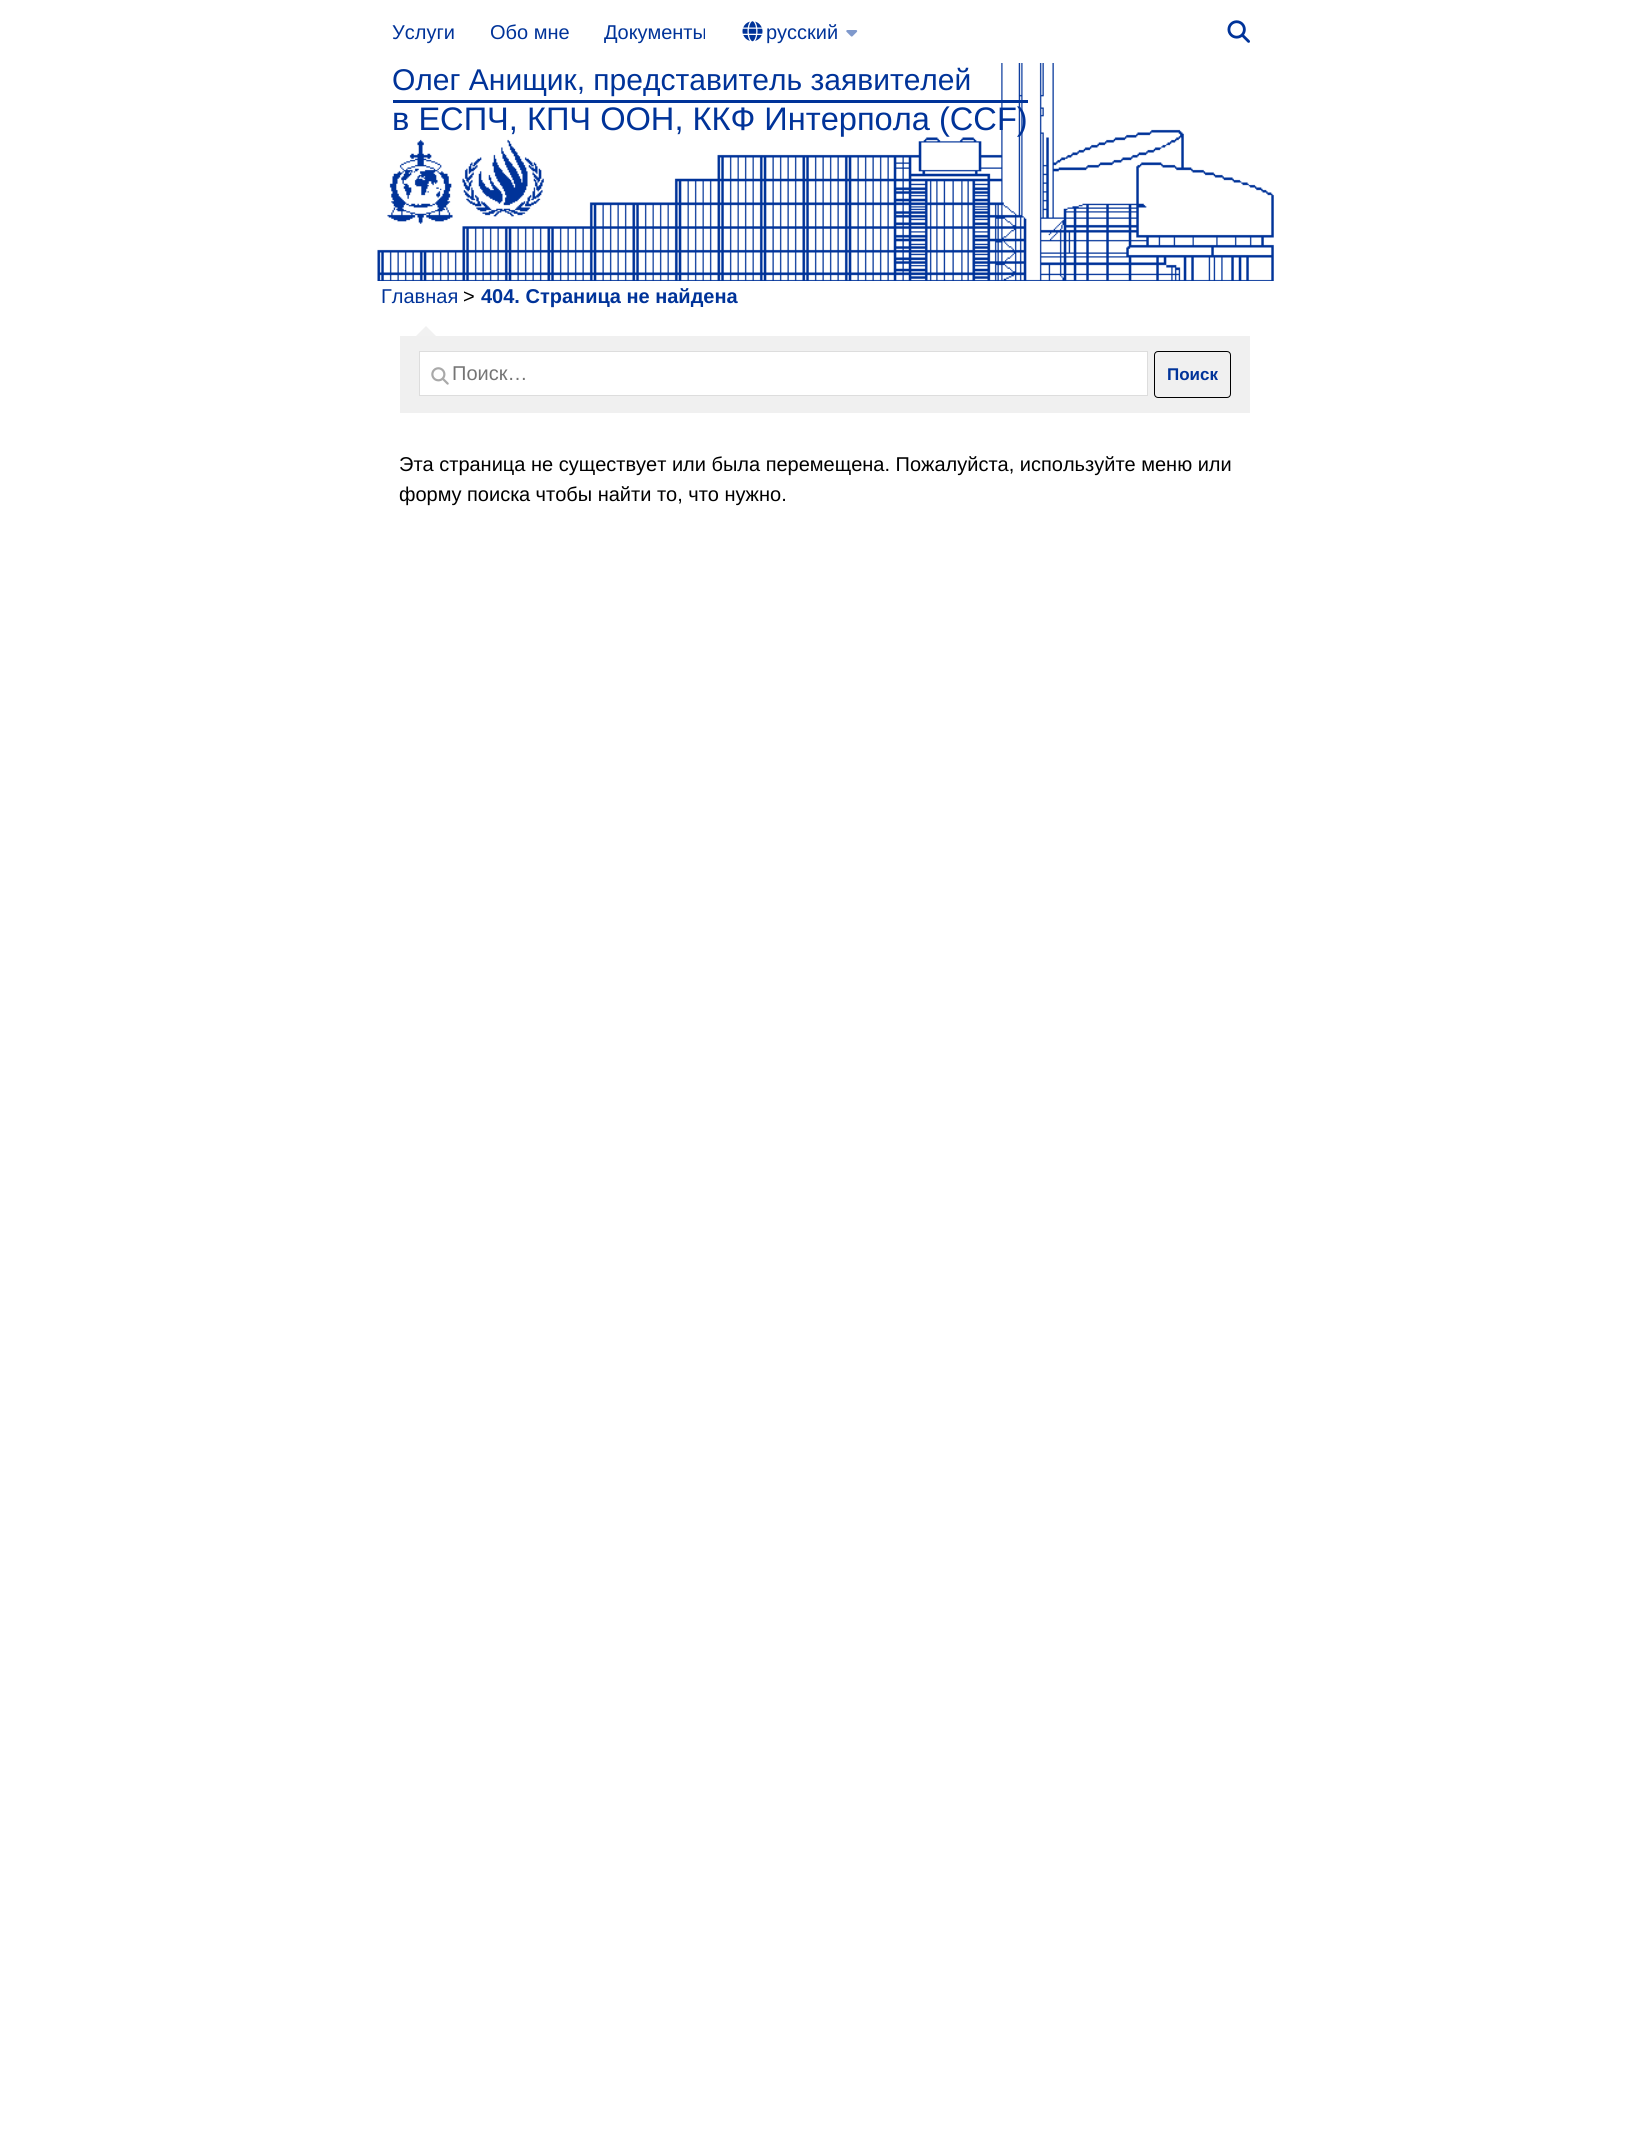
import math
import cairo

surface = cairo.ImageSurface(cairo.FORMAT_RGB24, 1648, 2152)
ctx = cairo.Context(surface)
options = cairo.FontOptions()
options.set_hint_metrics(cairo.HINT_METRICS_OFF)
options.set_hint_style(cairo.HINT_STYLE_NONE)
ctx.set_font_options(options)
ctx.set_miter_limit(4)


def round_rect(x, y, w, h, r):
    ctx.new_sub_path()
    for i, (u, v) in enumerate([(x + w - r, y + h - r), (x + r, y + h - r), (x + r, y + r), (x + w - r, y + r)]):
        ctx.arc(u, v, r, i * math.pi / 2, (i + 1) * math.pi / 2)
    ctx.close_path()


def picture(path, x, y, w, h):
    ctx.save()
    ctx.set_source_surface(cairo.ImageSurface.create_from_png(path), x, y)
    ctx.rectangle(x, y, w, h)
    ctx.fill()
    ctx.restore()


ctx.set_source_rgb(1, 1, 1)
ctx.paint()
ctx.select_font_face("Liberation Sans")
ctx.set_font_size(20)
ctx.set_source_rgb(0, 0.2, 0.6)
ctx.move_to(392, 39)
ctx.show_text("Услуги")
ctx.move_to(490, 39)
ctx.show_text("Обо мне")
ctx.move_to(604, 39)
ctx.show_text("Документы")
picture("img1.png", 742, 21, 21, 21)
ctx.move_to(766, 39)
ctx.show_text("русский")
picture("img2.png", 846, 30, 12, 7)
picture("img3.png", 1227, 20, 23, 23)
picture("img4.png", 377, 63, 897, 218)
ctx.set_font_size(30)
ctx.move_to(392, 90)
ctx.show_text("Олег Анищик, представитель заявителей")
ctx.set_font_size(32.6)
ctx.move_to(392, 130)
ctx.show_text("в ЕСПЧ, КПЧ ООН, ККФ Интерпола (CCF)")
ctx.rectangle(393, 100, 635, 3)
ctx.fill()
ctx.set_font_size(20)
ctx.move_to(381, 303)
ctx.show_text("Главная")
ctx.set_source_rgb(0, 0, 0)
ctx.move_to(463, 303)
ctx.show_text(">")
ctx.select_font_face("Liberation Sans", cairo.FONT_SLANT_NORMAL, cairo.FONT_WEIGHT_BOLD)
ctx.set_source_rgb(0, 0.2, 0.6)
ctx.move_to(481, 303)
ctx.show_text("404. Страница не найдена")
ctx.set_source_rgb(0.941, 0.941, 0.941)
ctx.rectangle(400, 336, 850, 77)
ctx.fill()
ctx.set_source_rgb(0.945, 0.945, 0.945)
ctx.new_path()
ctx.move_to(436, 336)
ctx.line_to(416, 336)
ctx.line_to(426, 326)
ctx.close_path()
ctx.fill()
ctx.set_source_rgb(1, 1, 1)
ctx.rectangle(419.5, 351.5, 728, 44)
ctx.fill_preserve()
ctx.set_source_rgb(0.867, 0.867, 0.867)
ctx.set_line_width(1)
ctx.stroke()
picture("img5.png", 431, 367, 18, 18)
ctx.select_font_face("Liberation Sans")
ctx.set_source_rgb(0.459, 0.459, 0.459)
ctx.move_to(452, 380)
ctx.show_text("Поиск…")
round_rect(1154.5, 351.5, 76, 46, 3.5)
ctx.set_source_rgb(0, 0, 0)
ctx.stroke()
ctx.select_font_face("Liberation Sans", cairo.FONT_SLANT_NORMAL, cairo.FONT_WEIGHT_BOLD)
ctx.set_font_size(17)
ctx.set_source_rgb(0, 0.2, 0.6)
ctx.move_to(1167, 380)
ctx.show_text("Поиск")
ctx.select_font_face("Liberation Sans")
ctx.set_font_size(20)
ctx.set_source_rgb(0, 0, 0)
ctx.move_to(399, 471)
ctx.show_text("Эта страница не существует или была перемещена. Пожалуйста, используйте меню или")
ctx.move_to(399, 501)
ctx.show_text("форму поиска чтобы найти то, что нужно.")
surface.write_to_png("page.png")
